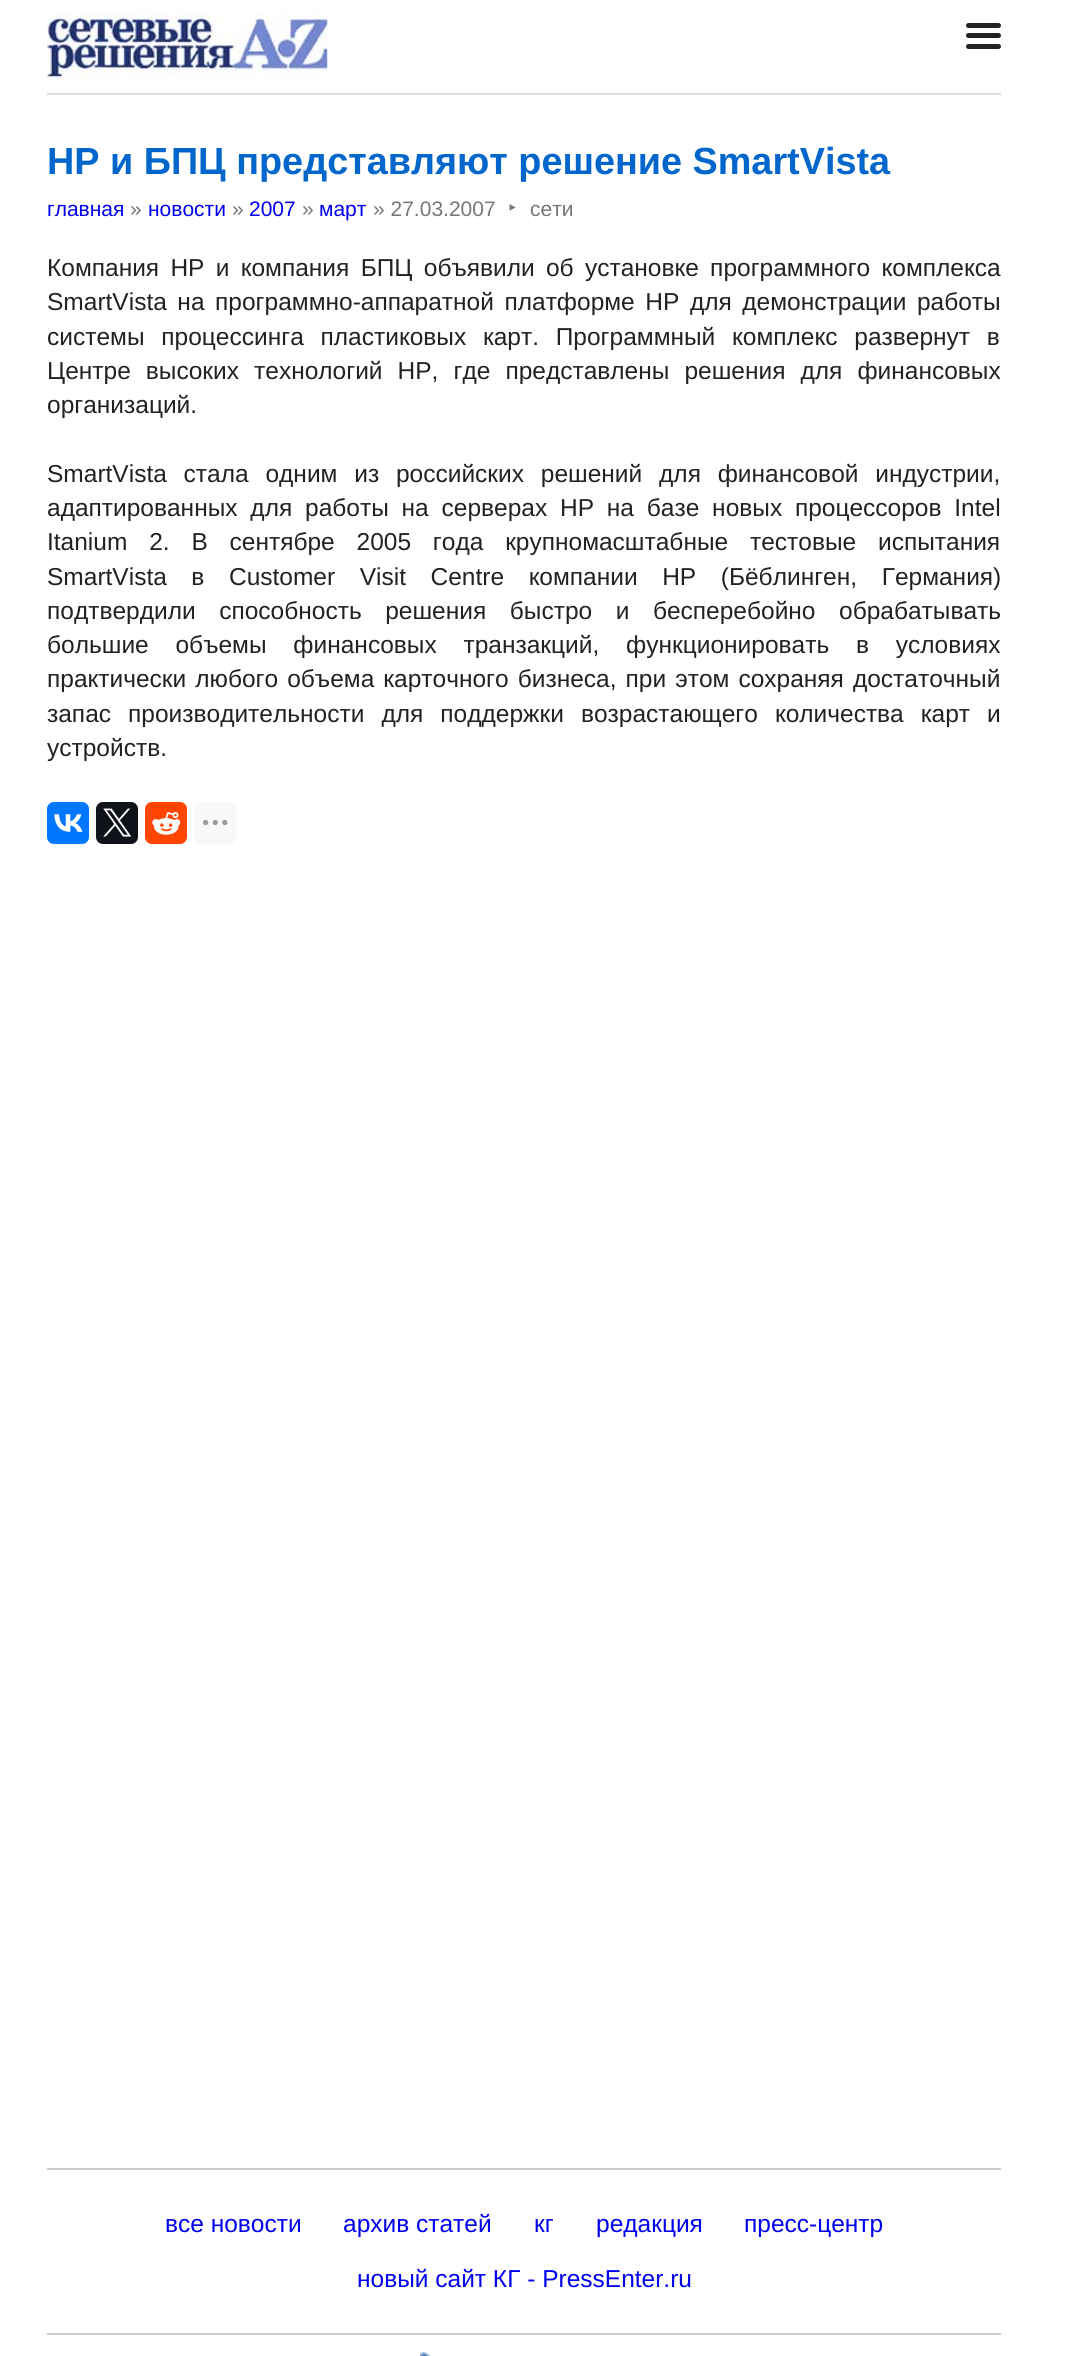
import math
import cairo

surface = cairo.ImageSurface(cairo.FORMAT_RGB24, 1074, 2356)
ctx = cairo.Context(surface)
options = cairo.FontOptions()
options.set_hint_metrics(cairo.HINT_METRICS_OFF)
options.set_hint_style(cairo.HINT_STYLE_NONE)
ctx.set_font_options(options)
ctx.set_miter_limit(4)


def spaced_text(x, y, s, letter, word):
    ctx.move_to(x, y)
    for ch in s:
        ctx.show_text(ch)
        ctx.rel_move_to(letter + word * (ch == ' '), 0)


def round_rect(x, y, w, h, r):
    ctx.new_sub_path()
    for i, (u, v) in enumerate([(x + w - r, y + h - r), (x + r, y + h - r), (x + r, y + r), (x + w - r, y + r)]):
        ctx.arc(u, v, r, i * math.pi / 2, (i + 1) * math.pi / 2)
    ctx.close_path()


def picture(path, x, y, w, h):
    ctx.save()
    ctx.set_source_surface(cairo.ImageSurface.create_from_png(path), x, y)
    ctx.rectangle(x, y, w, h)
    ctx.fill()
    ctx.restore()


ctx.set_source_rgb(1, 1, 1)
ctx.paint()
ctx.set_source_rgb(0.867, 0.867, 0.867)
ctx.rectangle(47, 93, 954, 2)
ctx.fill()
picture("img1.png", 47, 12, 281, 69)
ctx.set_source_rgb(0.133, 0.133, 0.133)
round_rect(966, 23, 35, 5, 2.5)
ctx.fill()
round_rect(966, 33, 35, 5, 2.5)
ctx.fill()
round_rect(966, 44, 35, 5, 2.5)
ctx.fill()
ctx.select_font_face("Liberation Sans", cairo.FONT_SLANT_NORMAL, cairo.FONT_WEIGHT_BOLD)
ctx.set_font_size(37.8)
ctx.set_source_rgb(0, 0.4, 0.8)
ctx.move_to(47, 174)
ctx.show_text("НР и БПЦ представляют решение SmartVista")
ctx.select_font_face("Liberation Sans")
ctx.set_font_size(21)
ctx.set_source_rgb(0, 0, 0.933)
ctx.move_to(47, 216)
ctx.show_text("главная")
ctx.set_source_rgb(0.467, 0.467, 0.467)
ctx.move_to(130, 216)
ctx.show_text("»")
ctx.set_source_rgb(0, 0, 0.933)
ctx.move_to(148, 216)
ctx.show_text("новости")
ctx.set_source_rgb(0.467, 0.467, 0.467)
ctx.move_to(232, 216)
ctx.show_text("»")
ctx.set_source_rgb(0, 0, 0.933)
ctx.move_to(249, 216)
ctx.show_text("2007")
ctx.set_source_rgb(0.467, 0.467, 0.467)
ctx.move_to(302, 216)
ctx.show_text("»")
ctx.set_source_rgb(0, 0, 0.933)
ctx.move_to(319, 216)
ctx.show_text("март")
ctx.set_source_rgb(0.467, 0.467, 0.467)
ctx.move_to(373, 216)
ctx.show_text("» 27.03.2007")
ctx.select_font_face("Noto Sans")
ctx.set_font_size(23)
ctx.move_to(508, 216)
ctx.show_text("‣")
ctx.select_font_face("Liberation Sans")
ctx.set_font_size(21)
ctx.move_to(530, 216)
ctx.show_text("сети")
ctx.set_font_size(24.5)
ctx.set_source_rgb(0.133, 0.133, 0.133)
spaced_text(47, 276, "Компания HP и компания БПЦ объявили об установке программного комплекса", 0, 4.5)
spaced_text(47, 310, "SmartVista на программно-аппаратной платформе HP для демонстрации работы", 0, 3.75)
spaced_text(47, 345, "системы процессинга пластиковых карт. Программный комплекс развернут в", 0, 10)
spaced_text(47, 379, "Центре высоких технологий НР, где представлены решения для финансовых", 0, 8.25)
ctx.move_to(47, 413)
ctx.show_text("организаций.")
spaced_text(47, 482, "SmartVista стала одним из российских решений для финансовой индустрии,", 0, 10)
spaced_text(47, 516, "адаптированных для работы на серверах HP на базе новых процессоров Intel", 0, 6)
spaced_text(47, 550, "Itanium 2. В сентябре 2005 года крупномасштабные тестовые испытания", 0, 15)
spaced_text(47, 585, "SmartVista в Customer Visit Centre компании HP (Бёблинген, Германия)", 0, 17.75)
spaced_text(47, 619, "подтвердили способность решения быстро и бесперебойно обрабатывать", 0, 16.75)
spaced_text(47, 653, "большие объемы финансовых транзакций, функционировать в условиях", 0, 20)
spaced_text(47, 687, "практически любого объема карточного бизнеса, при этом сохраняя достаточный", 0, 2.25)
spaced_text(47, 722, "запас производительности для поддержки возрастающего количества карт и", 0, 10.25)
ctx.move_to(47, 756)
ctx.show_text("устройств.")
ctx.set_source_rgb(0, 0.467, 1)
round_rect(47, 802, 42, 42, 7)
ctx.fill()
picture("img2.png", 54, 814, 29, 18)
ctx.set_source_rgb(0.059, 0.078, 0.098)
round_rect(96, 802, 42, 42, 7)
ctx.fill()
picture("img3.png", 103, 808, 29, 29)
ctx.set_source_rgb(1, 0.271, 0)
round_rect(145, 802, 42, 42, 7)
ctx.fill()
picture("img4.png", 152, 812, 29, 23)
ctx.set_source_rgb(0.969, 0.969, 0.969)
round_rect(194, 802, 42, 42, 7)
ctx.fill()
picture("img5.png", 203, 819, 25, 7)
ctx.set_source_rgb(0.8, 0.8, 0.8)
ctx.rectangle(47, 2168, 954, 2)
ctx.fill()
ctx.set_source_rgb(0, 0, 0.933)
ctx.move_to(165, 2232)
ctx.show_text("все новости")
ctx.move_to(343, 2232)
ctx.show_text("архив статей")
ctx.move_to(534, 2232)
ctx.show_text("кг")
ctx.move_to(596, 2232)
ctx.show_text("редакция")
ctx.move_to(744, 2232)
ctx.show_text("пресс-центр")
ctx.move_to(357, 2287)
ctx.show_text("новый сайт КГ - PressEnter.ru")
ctx.set_source_rgb(0.8, 0.8, 0.8)
ctx.rectangle(47, 2333, 954, 2)
ctx.fill()
picture("img6.png", 420, 2352, 11, 4)
surface.write_to_png("page.png")
